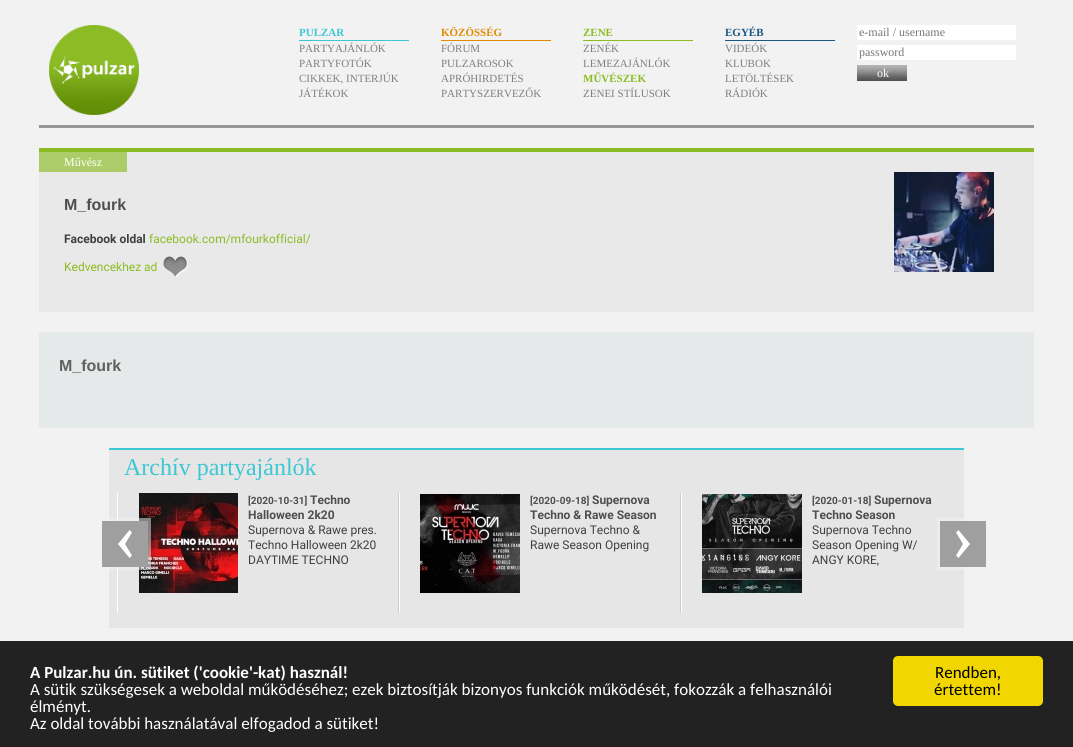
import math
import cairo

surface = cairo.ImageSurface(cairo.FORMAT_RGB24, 1073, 747)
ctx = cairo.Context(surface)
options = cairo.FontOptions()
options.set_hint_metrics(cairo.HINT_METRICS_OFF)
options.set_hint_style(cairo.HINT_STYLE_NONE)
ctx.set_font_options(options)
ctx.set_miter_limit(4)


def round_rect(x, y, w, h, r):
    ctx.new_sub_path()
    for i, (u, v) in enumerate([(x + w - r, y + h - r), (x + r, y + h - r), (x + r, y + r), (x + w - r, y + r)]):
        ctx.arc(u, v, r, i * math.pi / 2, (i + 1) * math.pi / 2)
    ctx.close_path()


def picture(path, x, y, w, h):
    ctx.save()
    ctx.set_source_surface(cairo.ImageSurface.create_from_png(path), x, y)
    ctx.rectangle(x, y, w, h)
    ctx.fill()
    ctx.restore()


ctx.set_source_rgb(0.949, 0.949, 0.949)
ctx.paint()
picture("img1.png", 49, 25, 90, 90)
ctx.set_source_rgb(0.239, 0.78, 0.831)
ctx.rectangle(299, 40, 110, 1)
ctx.fill()
ctx.select_font_face("Liberation Serif", cairo.FONT_SLANT_NORMAL, cairo.FONT_WEIGHT_BOLD)
ctx.set_font_size(11)
ctx.move_to(299, 36)
ctx.show_text("PULZAR")
ctx.select_font_face("Liberation Serif")
ctx.set_source_rgb(0.498, 0.498, 0.498)
ctx.move_to(299, 52)
ctx.show_text("PARTYAJÁNLÓK")
ctx.move_to(299, 67)
ctx.show_text("PARTYFOTÓK")
ctx.move_to(299, 82)
ctx.show_text("CIKKEK, INTERJÚK")
ctx.move_to(299, 97)
ctx.show_text("JÁTÉKOK")
ctx.set_source_rgb(0.878, 0.545, 0.016)
ctx.rectangle(441, 40, 110, 1)
ctx.fill()
ctx.select_font_face("Liberation Serif", cairo.FONT_SLANT_NORMAL, cairo.FONT_WEIGHT_BOLD)
ctx.move_to(441, 36)
ctx.show_text("KÖZÖSSÉG")
ctx.select_font_face("Liberation Serif")
ctx.set_source_rgb(0.498, 0.498, 0.498)
ctx.move_to(441, 52)
ctx.show_text("FÓRUM")
ctx.move_to(441, 67)
ctx.show_text("PULZAROSOK")
ctx.move_to(441, 82)
ctx.show_text("APRÓHIRDETÉS")
ctx.move_to(441, 97)
ctx.show_text("PARTYSZERVEZŐK")
ctx.set_source_rgb(0.545, 0.737, 0.145)
ctx.rectangle(583, 40, 110, 1)
ctx.fill()
ctx.select_font_face("Liberation Serif", cairo.FONT_SLANT_NORMAL, cairo.FONT_WEIGHT_BOLD)
ctx.move_to(583, 36)
ctx.show_text("ZENE")
ctx.select_font_face("Liberation Serif")
ctx.set_source_rgb(0.498, 0.498, 0.498)
ctx.move_to(583, 52)
ctx.show_text("ZENÉK")
ctx.move_to(583, 67)
ctx.show_text("LEMEZAJÁNLÓK")
ctx.select_font_face("Liberation Serif", cairo.FONT_SLANT_NORMAL, cairo.FONT_WEIGHT_BOLD)
ctx.set_source_rgb(0.545, 0.737, 0.145)
ctx.move_to(583, 82)
ctx.show_text("MŰVÉSZEK")
ctx.select_font_face("Liberation Serif")
ctx.set_source_rgb(0.498, 0.498, 0.498)
ctx.move_to(583, 97)
ctx.show_text("ZENEI STÍLUSOK")
ctx.set_source_rgb(0.098, 0.341, 0.518)
ctx.rectangle(725, 40, 110, 1)
ctx.fill()
ctx.select_font_face("Liberation Serif", cairo.FONT_SLANT_NORMAL, cairo.FONT_WEIGHT_BOLD)
ctx.move_to(725, 36)
ctx.show_text("EGYÉB")
ctx.select_font_face("Liberation Serif")
ctx.set_source_rgb(0.498, 0.498, 0.498)
ctx.move_to(725, 52)
ctx.show_text("VIDEÓK")
ctx.move_to(725, 67)
ctx.show_text("KLUBOK")
ctx.move_to(725, 82)
ctx.show_text("LETÖLTÉSEK")
ctx.move_to(725, 97)
ctx.show_text("RÁDIÓK")
ctx.set_source_rgb(1, 1, 1)
ctx.rectangle(857, 25, 159, 15)
ctx.fill()
ctx.set_font_size(12)
ctx.set_source_rgb(0.459, 0.459, 0.459)
ctx.move_to(859, 36)
ctx.show_text("e-mail / username")
ctx.set_source_rgb(1, 1, 1)
ctx.rectangle(857, 45, 159, 15)
ctx.fill()
ctx.set_source_rgb(0.459, 0.459, 0.459)
ctx.move_to(859, 56)
ctx.show_text("password")
ctx.set_source_rgb(0.322, 0.322, 0.322)
ctx.rectangle(857, 80, 50, 1)
ctx.fill()
picture("img2.png", 857, 65, 50, 15)
ctx.set_source_rgb(1, 1, 1)
ctx.move_to(877, 77)
ctx.show_text("ok")
ctx.set_source_rgb(0.588, 0.588, 0.588)
ctx.rectangle(39, 125, 995, 3)
ctx.fill()
ctx.set_source_rgb(0.914, 0.914, 0.914)
ctx.rectangle(39, 152, 995, 160)
ctx.fill()
picture("img3.png", 894, 172, 100, 100)
ctx.set_source_rgb(0.545, 0.737, 0.145)
ctx.rectangle(39, 148, 995, 4)
ctx.fill()
ctx.set_source_rgb(0.675, 0.8, 0.416)
ctx.rectangle(39, 152, 88, 20)
ctx.fill()
ctx.set_source_rgb(1, 1, 1)
ctx.move_to(64, 166)
ctx.show_text("Művész")
ctx.select_font_face("Liberation Sans", cairo.FONT_SLANT_NORMAL, cairo.FONT_WEIGHT_BOLD)
ctx.set_font_size(16)
ctx.set_source_rgb(0.306, 0.306, 0.306)
ctx.move_to(64, 210)
ctx.show_text("M_fourk")
ctx.select_font_face("Roboto", cairo.FONT_SLANT_NORMAL, cairo.FONT_WEIGHT_BOLD)
ctx.set_font_size(12)
ctx.set_source_rgb(0.247, 0.247, 0.247)
ctx.move_to(64, 243)
ctx.show_text("Facebook oldal")
ctx.select_font_face("Roboto")
ctx.set_source_rgb(0.545, 0.737, 0.145)
ctx.move_to(149, 243)
ctx.show_text("facebook.com/mfourkofficial/")
picture("img4.png", 163, 256, 25, 21)
ctx.move_to(64, 271)
ctx.show_text("Kedvencekhez ad")
ctx.set_source_rgb(0.902, 0.914, 0.914)
ctx.rectangle(39, 332, 995, 96)
ctx.fill()
ctx.select_font_face("Liberation Sans", cairo.FONT_SLANT_NORMAL, cairo.FONT_WEIGHT_BOLD)
ctx.set_font_size(16)
ctx.set_source_rgb(0.38, 0.38, 0.38)
ctx.move_to(59, 371)
ctx.show_text("M_fourk")
ctx.set_source_rgb(0.902, 0.902, 0.902)
ctx.rectangle(109, 450, 855, 178)
ctx.fill()
ctx.set_source_rgb(0.239, 0.78, 0.831)
ctx.rectangle(109, 448, 855, 2)
ctx.fill()
ctx.select_font_face("Liberation Serif")
ctx.set_font_size(24)
ctx.move_to(124, 475)
ctx.show_text("Archív partyajánlók")
ctx.set_source_rgb(1, 1, 1)
ctx.rectangle(117, 493, 1, 120)
ctx.fill()
picture("img5.png", 139, 493, 99, 100)
ctx.set_source_rgb(0.624, 0.624, 0.624)
ctx.rectangle(102, 521, 46, 46)
ctx.fill()
ctx.set_source_rgb(1, 1, 1)
ctx.new_path()
ctx.move_to(129.5, 530)
ctx.line_to(118, 544)
ctx.line_to(129.5, 558)
ctx.line_to(132, 555.5)
ctx.line_to(125, 544)
ctx.line_to(132, 532.5)
ctx.close_path()
ctx.fill()
ctx.rectangle(100.5, 519.5, 49, 49)
ctx.set_source_rgba(0.949, 0.949, 0.949, 0.5)
ctx.set_line_width(3)
ctx.stroke()
ctx.set_source_rgb(0.8, 0.8, 0.8)
ctx.rectangle(398, 493, 1, 120)
ctx.fill()
ctx.select_font_face("Roboto", cairo.FONT_SLANT_NORMAL, cairo.FONT_WEIGHT_BOLD)
ctx.set_font_size(10)
ctx.set_source_rgb(0.306, 0.306, 0.306)
ctx.move_to(248, 504)
ctx.show_text("[2020-10-31]")
ctx.set_font_size(12)
ctx.move_to(310, 504)
ctx.show_text("Techno")
ctx.move_to(248, 519)
ctx.show_text("Halloween 2k20")
ctx.select_font_face("Roboto")
ctx.set_source_rgb(0.247, 0.247, 0.247)
ctx.move_to(248, 534)
ctx.show_text("Supernova & Rawe pres.")
ctx.move_to(248, 549)
ctx.show_text("Techno Halloween 2k20")
ctx.move_to(248, 564)
ctx.show_text("DAYTIME TECHNO")
ctx.set_source_rgb(0.8, 0.8, 0.8)
ctx.rectangle(680, 493, 1, 120)
ctx.fill()
ctx.set_source_rgb(1, 1, 1)
ctx.rectangle(399, 493, 1, 120)
ctx.fill()
picture("img6.png", 420, 494, 100, 99)
ctx.select_font_face("Roboto", cairo.FONT_SLANT_NORMAL, cairo.FONT_WEIGHT_BOLD)
ctx.set_font_size(10)
ctx.set_source_rgb(0.306, 0.306, 0.306)
ctx.move_to(530, 504)
ctx.show_text("[2020-09-18]")
ctx.set_font_size(12)
ctx.move_to(592, 504)
ctx.show_text("Supernova")
ctx.move_to(530, 519)
ctx.show_text("Techno & Rawe Season")
ctx.select_font_face("Roboto")
ctx.set_source_rgb(0.247, 0.247, 0.247)
ctx.move_to(530, 534)
ctx.show_text("Supernova Techno &")
ctx.move_to(530, 549)
ctx.show_text("Rawe Season Opening")
ctx.set_source_rgb(1, 1, 1)
ctx.rectangle(681, 493, 1, 120)
ctx.fill()
picture("img7.png", 702, 494, 100, 99)
ctx.select_font_face("Roboto", cairo.FONT_SLANT_NORMAL, cairo.FONT_WEIGHT_BOLD)
ctx.set_font_size(10)
ctx.set_source_rgb(0.306, 0.306, 0.306)
ctx.move_to(812, 504)
ctx.show_text("[2020-01-18]")
ctx.set_font_size(12)
ctx.move_to(874, 504)
ctx.show_text("Supernova")
ctx.move_to(812, 519)
ctx.show_text("Techno Season")
ctx.select_font_face("Roboto")
ctx.set_source_rgb(0.247, 0.247, 0.247)
ctx.move_to(812, 534)
ctx.show_text("Supernova Techno")
ctx.move_to(812, 549)
ctx.show_text("Season Opening W/")
ctx.move_to(812, 564)
ctx.show_text("ANGY KORE,")
ctx.set_source_rgb(0.624, 0.624, 0.624)
ctx.rectangle(940, 521, 46, 46)
ctx.fill()
ctx.set_source_rgb(1, 1, 1)
ctx.new_path()
ctx.move_to(958.5, 530)
ctx.line_to(970, 544)
ctx.line_to(958.5, 558)
ctx.line_to(956, 555.5)
ctx.line_to(963, 544)
ctx.line_to(956, 532.5)
ctx.close_path()
ctx.fill()
ctx.rectangle(938.5, 519.5, 49, 49)
ctx.set_source_rgba(0.949, 0.949, 0.949, 0.5)
ctx.stroke()
ctx.set_source_rgb(0.133, 0.133, 0.133)
ctx.rectangle(0, 641, 1073, 106)
ctx.fill()
ctx.select_font_face("Carlito", cairo.FONT_SLANT_NORMAL, cairo.FONT_WEIGHT_BOLD)
ctx.set_font_size(17)
ctx.set_source_rgb(1, 1, 1)
ctx.move_to(30, 678)
ctx.show_text("A Pulzar.hu ún. sütiket ('cookie'-kat) használ!")
ctx.select_font_face("Carlito")
ctx.move_to(30, 695)
ctx.show_text("A sütik szükségesek a weboldal működéséhez; ezek biztosítják bizonyos funkciók működését, fokozzák a felhasználói")
ctx.move_to(30, 712)
ctx.show_text("élményt.")
ctx.move_to(30, 729)
ctx.show_text("Az oldal további használatával elfogadod a sütiket!")
ctx.set_source_rgb(0.945, 0.839, 0)
round_rect(893, 656, 150, 50, 5)
ctx.fill()
ctx.set_source_rgb(0, 0, 0)
ctx.move_to(935, 678)
ctx.show_text("Rendben,")
ctx.move_to(934, 695)
ctx.show_text("értettem!")
surface.write_to_png("page.png")
